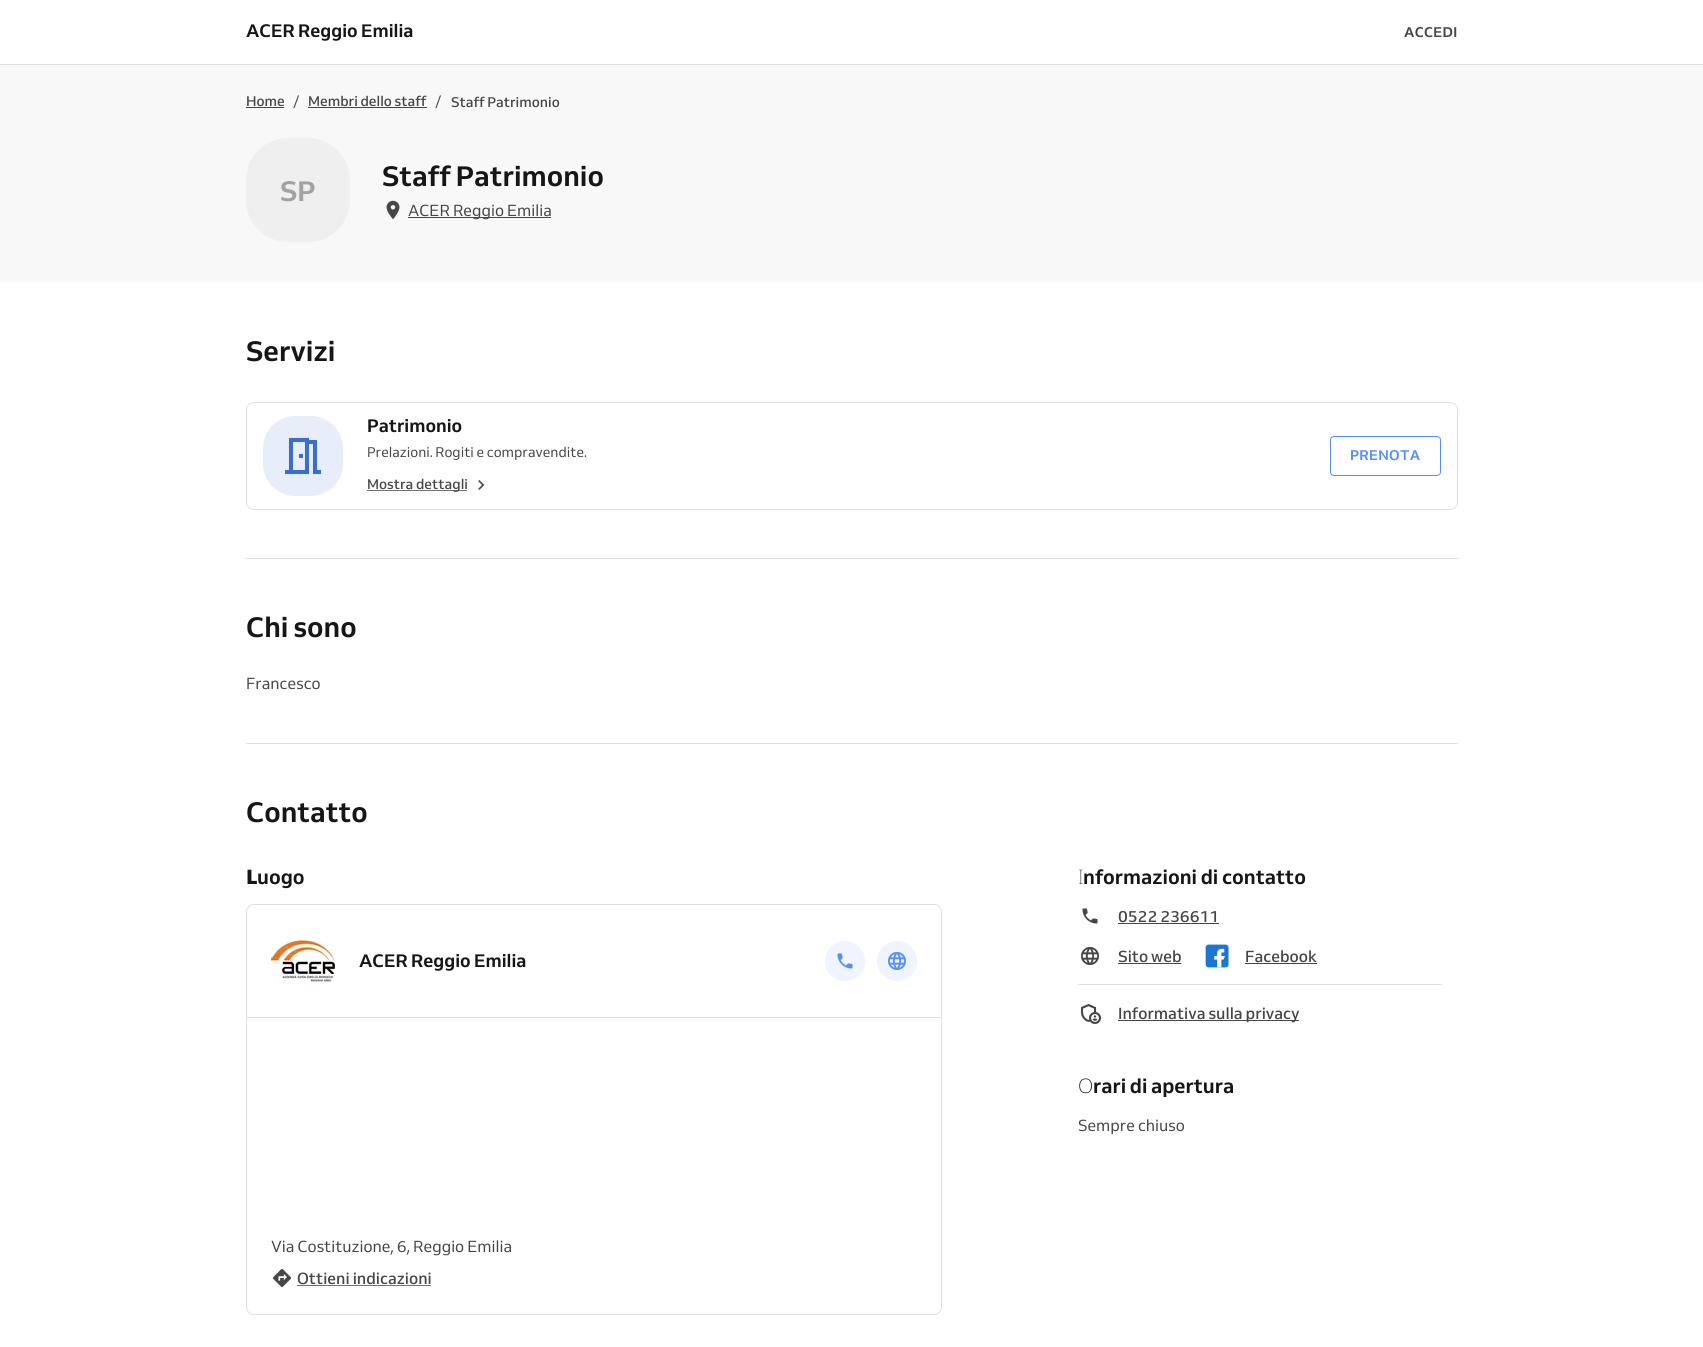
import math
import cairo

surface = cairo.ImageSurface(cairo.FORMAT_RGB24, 1703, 1347)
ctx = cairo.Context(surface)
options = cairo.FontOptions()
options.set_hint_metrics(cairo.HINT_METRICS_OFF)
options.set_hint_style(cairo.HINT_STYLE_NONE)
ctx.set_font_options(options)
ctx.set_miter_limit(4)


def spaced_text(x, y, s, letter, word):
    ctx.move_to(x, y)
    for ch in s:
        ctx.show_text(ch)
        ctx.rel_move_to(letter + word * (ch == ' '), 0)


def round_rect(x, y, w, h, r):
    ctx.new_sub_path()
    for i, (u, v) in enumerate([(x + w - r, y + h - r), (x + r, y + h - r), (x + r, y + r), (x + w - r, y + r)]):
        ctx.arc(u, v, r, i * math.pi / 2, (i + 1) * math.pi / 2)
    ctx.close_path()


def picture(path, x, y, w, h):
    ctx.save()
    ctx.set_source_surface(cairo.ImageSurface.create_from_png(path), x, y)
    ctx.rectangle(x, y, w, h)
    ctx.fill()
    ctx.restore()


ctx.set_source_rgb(1, 1, 1)
ctx.paint()
ctx.set_source_rgb(0.878, 0.878, 0.878)
ctx.rectangle(0, 64, 1703, 1)
ctx.fill()
ctx.select_font_face("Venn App", cairo.FONT_SLANT_NORMAL, cairo.FONT_WEIGHT_BOLD)
ctx.set_font_size(18)
ctx.set_source_rgb(0.086, 0.086, 0.086)
ctx.move_to(246, 37)
ctx.show_text("ACER Reggio Emilia")
ctx.set_font_size(14)
ctx.set_source_rgb(0.275, 0.275, 0.275)
spaced_text(1404, 37, "ACCEDI", 0.25, 0)
ctx.set_source_rgb(0.969, 0.969, 0.969)
ctx.rectangle(0, 65, 1703, 217)
ctx.fill()
ctx.select_font_face("Venn App Medium")
ctx.set_source_rgb(0.275, 0.275, 0.275)
ctx.move_to(246, 106)
ctx.show_text("Home")
ctx.rectangle(246, 107, 38, 1)
ctx.fill()
ctx.select_font_face("Venn App")
ctx.move_to(293, 106)
ctx.show_text("/")
ctx.select_font_face("Venn App Medium")
ctx.move_to(308, 106)
ctx.show_text("Membri dello staff")
ctx.rectangle(308, 107, 119, 1)
ctx.fill()
ctx.select_font_face("Venn App")
ctx.move_to(435, 106)
ctx.show_text("/")
ctx.select_font_face("Venn App Medium")
ctx.move_to(451, 107)
ctx.show_text("Staff Patrimonio")
ctx.set_source_rgb(0.937, 0.937, 0.937)
round_rect(246, 138, 104, 104, 42)
ctx.fill()
ctx.select_font_face("Venn App", cairo.FONT_SLANT_NORMAL, cairo.FONT_WEIGHT_BOLD)
ctx.set_font_size(28)
ctx.set_source_rgb(0.635, 0.635, 0.635)
ctx.move_to(280, 201)
ctx.show_text("SP")
ctx.set_source_rgb(0.086, 0.086, 0.086)
ctx.move_to(382, 186)
ctx.show_text("Staff Patrimonio")
picture("img1.png", 386, 200, 14, 20)
ctx.set_source_rgb(0.275, 0.275, 0.275)
ctx.rectangle(408, 217, 143, 1)
ctx.fill()
ctx.select_font_face("Venn App")
ctx.set_font_size(16)
ctx.move_to(408, 216)
ctx.show_text("ACER Reggio Emilia")
ctx.select_font_face("Venn App", cairo.FONT_SLANT_NORMAL, cairo.FONT_WEIGHT_BOLD)
ctx.set_font_size(28)
ctx.set_source_rgb(0.086, 0.086, 0.086)
ctx.move_to(246, 361)
ctx.show_text("Servizi")
round_rect(246.5, 402.5, 1211, 107, 7.5)
ctx.set_source_rgb(0.878, 0.878, 0.878)
ctx.set_line_width(1)
ctx.stroke()
ctx.set_source_rgb(0.906, 0.933, 0.976)
round_rect(263, 416, 80, 80, 32)
ctx.fill()
picture("img2.png", 284, 437, 38, 38)
ctx.set_font_size(18)
ctx.set_source_rgb(0.086, 0.086, 0.086)
ctx.move_to(367, 432)
ctx.show_text("Patrimonio")
ctx.select_font_face("Venn App")
ctx.set_font_size(14)
ctx.set_source_rgb(0.275, 0.275, 0.275)
ctx.move_to(367, 457)
ctx.show_text("Prelazioni. Rogiti e compravendite.")
ctx.set_source_rgb(0.451, 0.451, 0.451)
ctx.rectangle(367, 490, 100, 1)
ctx.fill()
ctx.select_font_face("Venn App Medium")
ctx.set_source_rgb(0.275, 0.275, 0.275)
ctx.move_to(367, 489)
ctx.show_text("Mostra dettagli")
picture("img3.png", 478, 480, 7, 10)
round_rect(1330.5, 436.5, 110, 39, 3.5)
ctx.set_source_rgb(0.337, 0.565, 0.961)
ctx.stroke()
ctx.select_font_face("Venn App", cairo.FONT_SLANT_NORMAL, cairo.FONT_WEIGHT_BOLD)
spaced_text(1350, 460, "PRENOTA", 0.25, 0)
ctx.set_source_rgb(0.878, 0.878, 0.878)
ctx.rectangle(246, 558, 1212, 1)
ctx.fill()
ctx.set_font_size(28)
ctx.set_source_rgb(0.086, 0.086, 0.086)
ctx.move_to(246, 637)
ctx.show_text("Chi sono")
ctx.select_font_face("Venn App")
ctx.set_font_size(16)
ctx.set_source_rgb(0.275, 0.275, 0.275)
ctx.move_to(246, 689)
ctx.show_text("Francesco")
ctx.set_source_rgb(0.878, 0.878, 0.878)
ctx.rectangle(246, 743, 1212, 1)
ctx.fill()
ctx.select_font_face("Venn App", cairo.FONT_SLANT_NORMAL, cairo.FONT_WEIGHT_BOLD)
ctx.set_font_size(28)
ctx.set_source_rgb(0.086, 0.086, 0.086)
ctx.move_to(246, 822)
ctx.show_text("Contatto")
ctx.select_font_face("Noto Sans Black")
ctx.set_font_size(20)
ctx.move_to(246, 884)
ctx.show_text("L")
ctx.select_font_face("Venn App", cairo.FONT_SLANT_NORMAL, cairo.FONT_WEIGHT_BOLD)
ctx.move_to(257, 884)
ctx.show_text("uogo")
round_rect(246.5, 904.5, 695, 410, 7.5)
ctx.set_source_rgb(0.878, 0.878, 0.878)
ctx.stroke()
ctx.rectangle(247, 1017, 694, 1)
ctx.fill()
picture("img4.png", 271, 929, 64, 64)
ctx.set_font_size(18)
ctx.set_source_rgb(0.086, 0.086, 0.086)
ctx.move_to(359, 967)
ctx.show_text("ACER Reggio Emilia")
ctx.set_source_rgb(0.937, 0.957, 0.996)
ctx.new_path()
ctx.arc(845, 961, 20, 0, 2 * math.pi)
ctx.fill()
picture("img5.png", 837, 953, 16, 16)
ctx.arc(897, 961, 20, 0, 2 * math.pi)
ctx.fill()
picture("img6.png", 888, 952, 18, 18)
ctx.select_font_face("Venn App")
ctx.set_font_size(16)
ctx.set_source_rgb(0.275, 0.275, 0.275)
ctx.move_to(271, 1252)
ctx.show_text("Via Costituzione, 6, Reggio Emilia")
picture("img7.png", 272, 1268, 20, 20)
ctx.select_font_face("Venn App Medium")
ctx.move_to(297, 1284)
ctx.show_text("Ottieni indicazioni")
ctx.set_source_rgb(0.451, 0.451, 0.451)
ctx.rectangle(297, 1285, 134, 1)
ctx.fill()
ctx.select_font_face("Noto Sans Thin")
ctx.set_font_size(20)
ctx.set_source_rgb(0.086, 0.086, 0.086)
ctx.move_to(1078, 884)
ctx.show_text("I")
ctx.select_font_face("Venn App", cairo.FONT_SLANT_NORMAL, cairo.FONT_WEIGHT_BOLD)
ctx.move_to(1083, 884)
ctx.show_text("nformazioni di contatto")
picture("img8.png", 1082, 908, 16, 16)
ctx.select_font_face("Venn App Medium")
ctx.set_font_size(16)
ctx.set_source_rgb(0.275, 0.275, 0.275)
ctx.move_to(1118, 922)
ctx.show_text("0522 236611")
ctx.rectangle(1118, 923, 101, 1)
ctx.fill()
picture("img9.png", 1081, 947, 18, 18)
ctx.move_to(1118, 962)
ctx.show_text("Sito web")
ctx.rectangle(1118, 963, 63, 1)
ctx.fill()
picture("img10.png", 1205, 944, 24, 24)
ctx.move_to(1245, 962)
ctx.show_text("Facebook")
ctx.rectangle(1245, 963, 72, 1)
ctx.fill()
ctx.set_source_rgb(0.878, 0.878, 0.878)
ctx.rectangle(1078, 984, 364, 1)
ctx.fill()
picture("img11.png", 1080, 1004, 21, 20)
ctx.set_source_rgb(0.275, 0.275, 0.275)
ctx.rectangle(1118, 1020, 181, 1)
ctx.fill()
ctx.move_to(1118, 1019)
ctx.show_text("Informativa sulla privacy")
ctx.select_font_face("Noto Sans ExtraLight")
ctx.set_font_size(20)
ctx.set_source_rgb(0.086, 0.086, 0.086)
ctx.move_to(1078, 1093)
ctx.show_text("O")
ctx.select_font_face("Venn App", cairo.FONT_SLANT_NORMAL, cairo.FONT_WEIGHT_BOLD)
ctx.move_to(1093, 1093)
ctx.show_text("rari di apertura")
ctx.select_font_face("Venn App")
ctx.set_font_size(16)
ctx.set_source_rgb(0.275, 0.275, 0.275)
ctx.move_to(1078, 1131)
ctx.show_text("Sempre chiuso")
surface.write_to_png("page.png")
